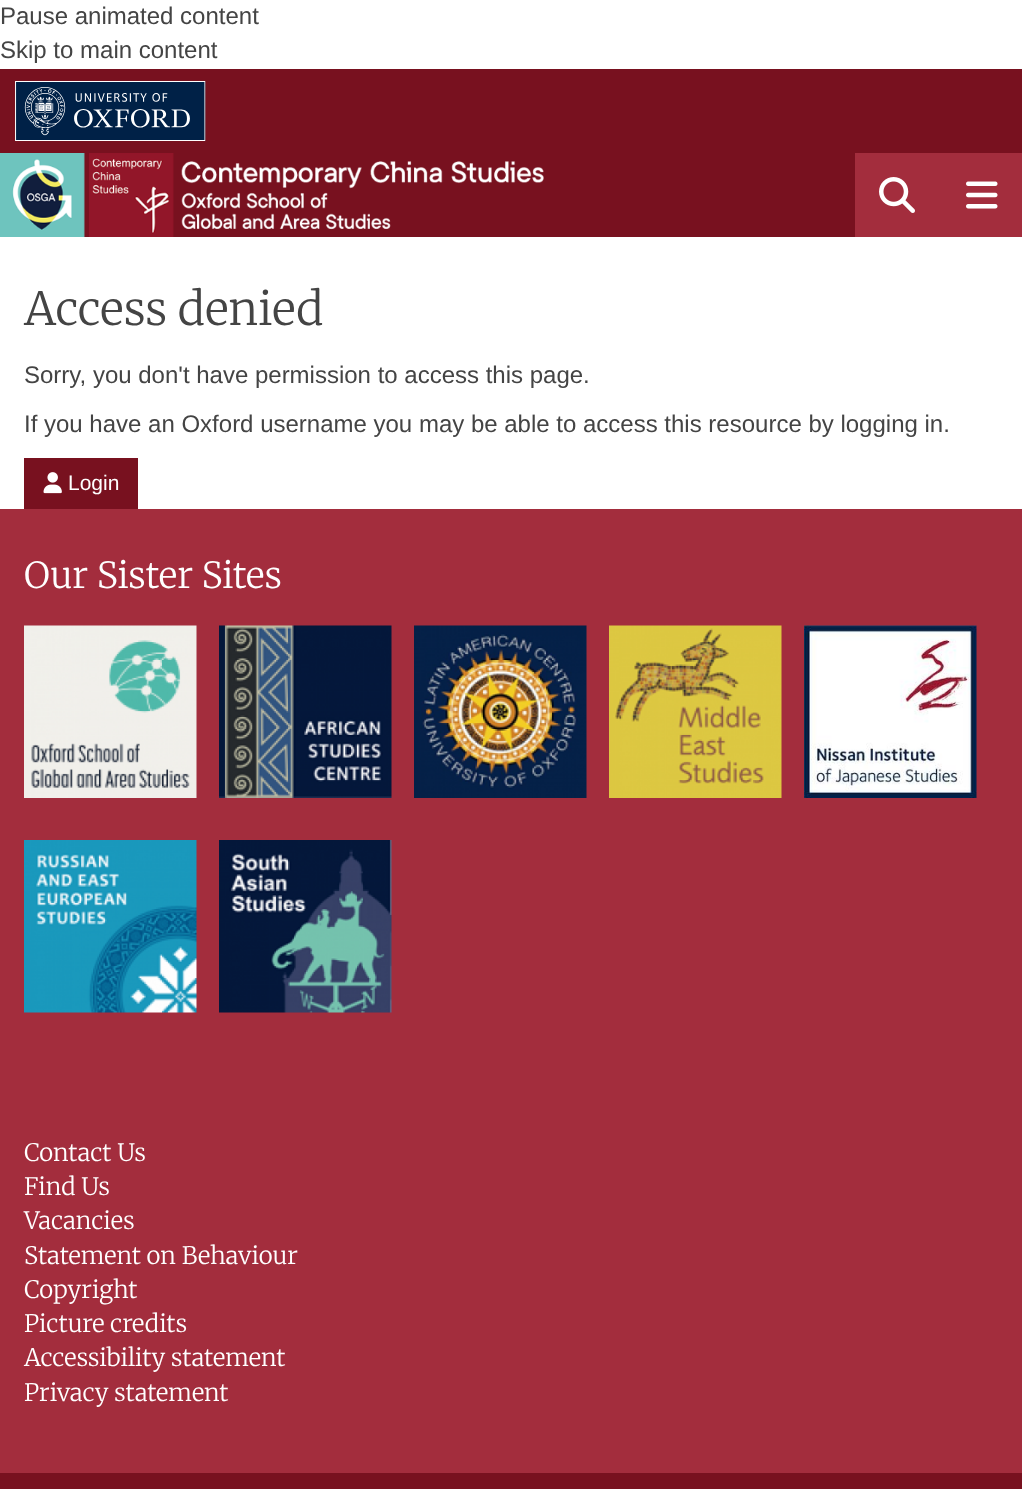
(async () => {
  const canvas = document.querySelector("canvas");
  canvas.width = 1022;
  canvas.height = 1489;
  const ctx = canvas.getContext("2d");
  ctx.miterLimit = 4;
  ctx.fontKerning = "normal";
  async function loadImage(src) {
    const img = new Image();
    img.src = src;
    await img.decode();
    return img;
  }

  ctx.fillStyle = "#ffffff";
  ctx.fillRect(0, 0, 1022, 1489);
  ctx.fillStyle = "#78111f";
  ctx.fillRect(0, 69, 1022, 84);
  ctx.drawImage(await loadImage("img/1.png"), 15, 81, 191, 60);
  ctx.fillRect(83, 153, 772, 84);
  ctx.drawImage(await loadImage("img/2.png"), 0, 153, 544, 84);
  ctx.fillStyle = "#a32d3d";
  ctx.fillRect(855, 153, 167, 84);
  ctx.drawImage(await loadImage("img/3.png"), 966, 181, 32, 28);
  ctx.drawImage(await loadImage("img/4.png"), 879, 177, 36, 36);
  ctx.fillStyle = "#78111f";
  ctx.fillRect(24, 458, 114, 51);
  ctx.drawImage(await loadImage("img/5.png"), 43, 472, 19, 22);
  ctx.fillStyle = "#a32d3d";
  ctx.fillRect(0, 509, 1022, 964);
  ctx.drawImage(await loadImage("img/6.png"), 24, 625, 173, 173);
  ctx.drawImage(await loadImage("img/7.png"), 219, 625, 173, 173);
  ctx.drawImage(await loadImage("img/8.png"), 414, 625, 173, 173);
  ctx.drawImage(await loadImage("img/9.png"), 609, 625, 173, 173);
  ctx.drawImage(await loadImage("img/10.png"), 804, 625, 173, 173);
  ctx.drawImage(await loadImage("img/11.png"), 24, 840, 173, 173);
  ctx.drawImage(await loadImage("img/12.png"), 219, 840, 173, 173);
  ctx.fillStyle = "#78111f";
  ctx.fillRect(0, 1473, 1022, 16);
  ctx.font = "24px Liberation Sans";
  ctx.fillStyle = "#444444";
  ctx.fillText("Pause animated content", 0, 24);
  ctx.fillText("Skip to main content", 0, 58);
  ctx.font = "300 45.5px Merriweather";
  ctx.fillText("Access denied", 24, 325);
  ctx.font = "24px Liberation Sans";
  ctx.fillText("Sorry, you don't have permission to access this page.", 24, 383);
  ctx.fillText("If you have an Oxford username you may be able to access this resource by logging in.", 24, 432);
  ctx.font = "21px Liberation Sans";
  ctx.fillStyle = "#ffffff";
  ctx.fillText("Login", 68, 490);
  ctx.font = "300 36px Merriweather";
  ctx.fillText("Our Sister Sites", 24, 588);
  ctx.font = "300 24px Merriweather";
  for (const [text, x, y] of [
    ["Contact Us", 24, 1161],
    ["Find Us", 24, 1195],
    ["Vacancies", 24, 1229],
    ["Statement on Behaviour", 24, 1264],
    ["Copyright", 24, 1298],
    ["Picture credits", 24, 1332],
    ["Accessibility statement", 24, 1366],
    ["Privacy statement", 24, 1401],
  ]) {
    ctx.fillText(text, x, y);
  }
})();
